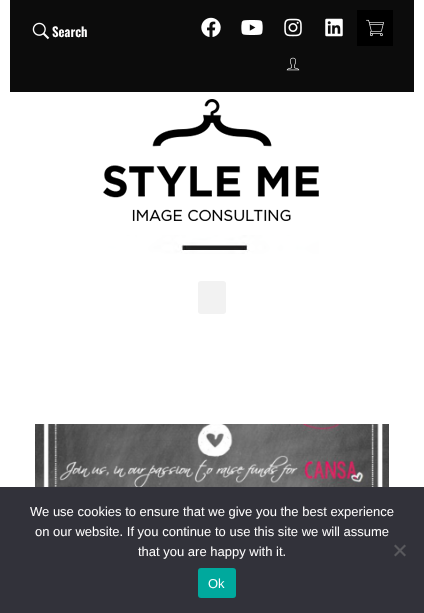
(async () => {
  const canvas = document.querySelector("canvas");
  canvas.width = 424;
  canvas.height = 613;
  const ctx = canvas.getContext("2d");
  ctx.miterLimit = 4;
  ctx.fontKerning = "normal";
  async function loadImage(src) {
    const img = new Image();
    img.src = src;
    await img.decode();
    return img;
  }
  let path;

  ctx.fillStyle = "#ffffff";
  ctx.fillRect(0, 0, 424, 613);
  ctx.fillStyle = "#0c0c0c";
  ctx.fillRect(10, 0, 404, 92);
  ctx.drawImage(await loadImage("img/1.png"), 201, 17, 20, 20);
  ctx.drawImage(await loadImage("img/2.png"), 241, 20, 22, 15);
  ctx.drawImage(await loadImage("img/3.png"), 284, 18, 18, 19);
  ctx.drawImage(await loadImage("img/4.png"), 325, 18, 18, 19);
  ctx.fillStyle = "#000000";
  ctx.fillRect(357, 10, 36, 36);
  ctx.drawImage(await loadImage("img/5.png"), 366, 19, 18, 18);
  ctx.drawImage(await loadImage("img/6.png"), 286, 57, 14, 14);
  ctx.drawImage(await loadImage("img/7.png"), 32, 22, 18, 18);
  ctx.drawImage(await loadImage("img/8.png"), 103, 99, 216, 155);
  ctx.fillStyle = "#f2f2f2";
  ctx.beginPath();
  ctx.roundRect(198, 281, 28, 33, 3);
  ctx.fill();
  ctx.drawImage(await loadImage("img/9.png"), 35, 424, 354, 63);
  ctx.fillStyle = "#32323a";
  ctx.fillRect(0, 487, 424, 126);
  ctx.fillStyle = "#59595d";
  path = new Path2D("M404.5 544.5L406 546L395.5 556.5L394 555Z");
  ctx.fill(path);
  path = new Path2D("M394 546L395.5 544.5L406 555L404.5 556.5Z");
  ctx.fill(path);
  ctx.fillStyle = "#00a99d";
  ctx.beginPath();
  ctx.roundRect(198, 568, 38, 30, 3);
  ctx.fill();
  ctx.font = "600 13px Oswald";
  ctx.fillStyle = "#fffefe";
  ctx.fillText("Search", 52, 37);
  ctx.font = "13px Liberation Sans";
  for (const [text, x, y] of [
    ["We use cookies to ensure that we give you the best experience", 30, 516],
    ["on our website. If you continue to use this site we will assume", 35, 536],
    ["that you are happy with it.", 138, 556],
    ["Ok", 208, 588],
  ]) {
    ctx.fillText(text, x, y);
  }
})();
